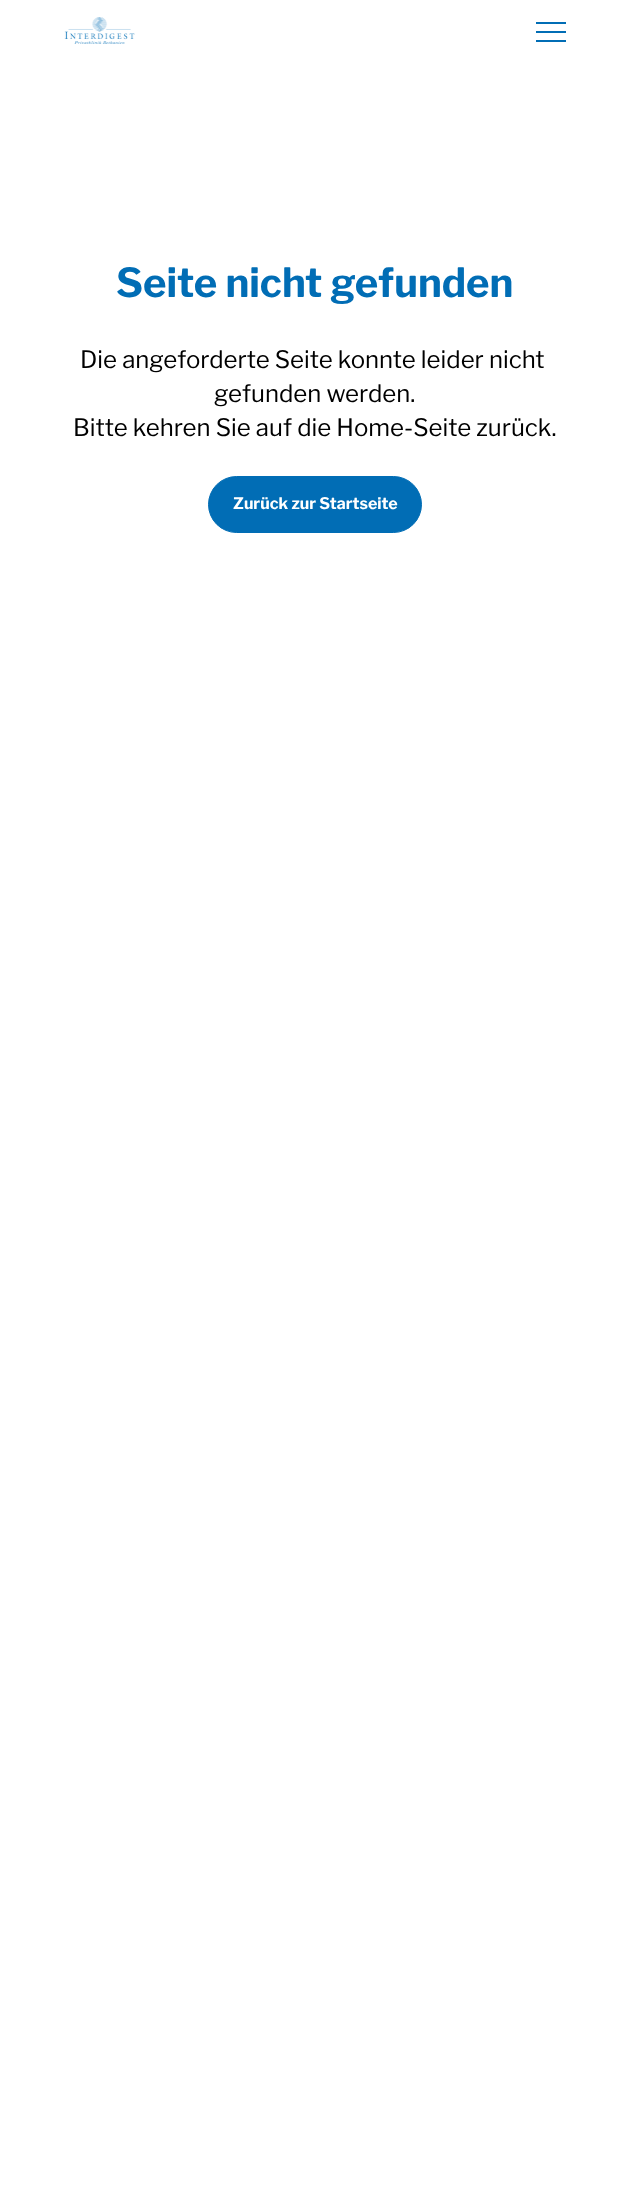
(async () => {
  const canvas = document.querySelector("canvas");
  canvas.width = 630;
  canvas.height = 2206;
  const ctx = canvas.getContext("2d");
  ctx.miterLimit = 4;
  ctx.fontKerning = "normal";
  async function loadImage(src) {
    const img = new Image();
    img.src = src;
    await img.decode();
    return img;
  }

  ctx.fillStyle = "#ffffff";
  ctx.fillRect(0, 0, 630, 2206);
  ctx.drawImage(await loadImage("img/1.png"), 64, 17, 71, 27);
  for (const [x, y, w, h, color] of [
    [536, 22, 30, 2, "#016db5"],
    [536, 31, 30, 2, "#016db5"],
    [536, 40, 30, 2, "#016db5"],
  ]) {
    ctx.fillStyle = color;
    ctx.fillRect(x, y, w, h);
  }
  ctx.beginPath();
  ctx.roundRect(208.5, 476.5, 213, 56, 28);
  ctx.fill();
  ctx.strokeStyle = "#016db5";
  ctx.stroke();
  ctx.font = "100 40px Libre Franklin";
  ctx.fillText("Seite nicht gefunden", 116, 297);
  ctx.font = "100 24px 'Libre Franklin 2'";
  ctx.fillStyle = "#000000";
  for (const [text, x, y] of [
    ["Die angeforderte Seite konnte leider nicht", 80, 368],
    ["gefunden werden.", 214, 402],
    ["Bitte kehren Sie auf die Home-Seite zurück.", 73, 436],
  ]) {
    ctx.fillText(text, x, y);
  }
  ctx.font = "100 16px Libre Franklin";
  ctx.fillStyle = "#ffffff";
  ctx.fillText("Zurück zur Startseite", 233, 509);
})();
